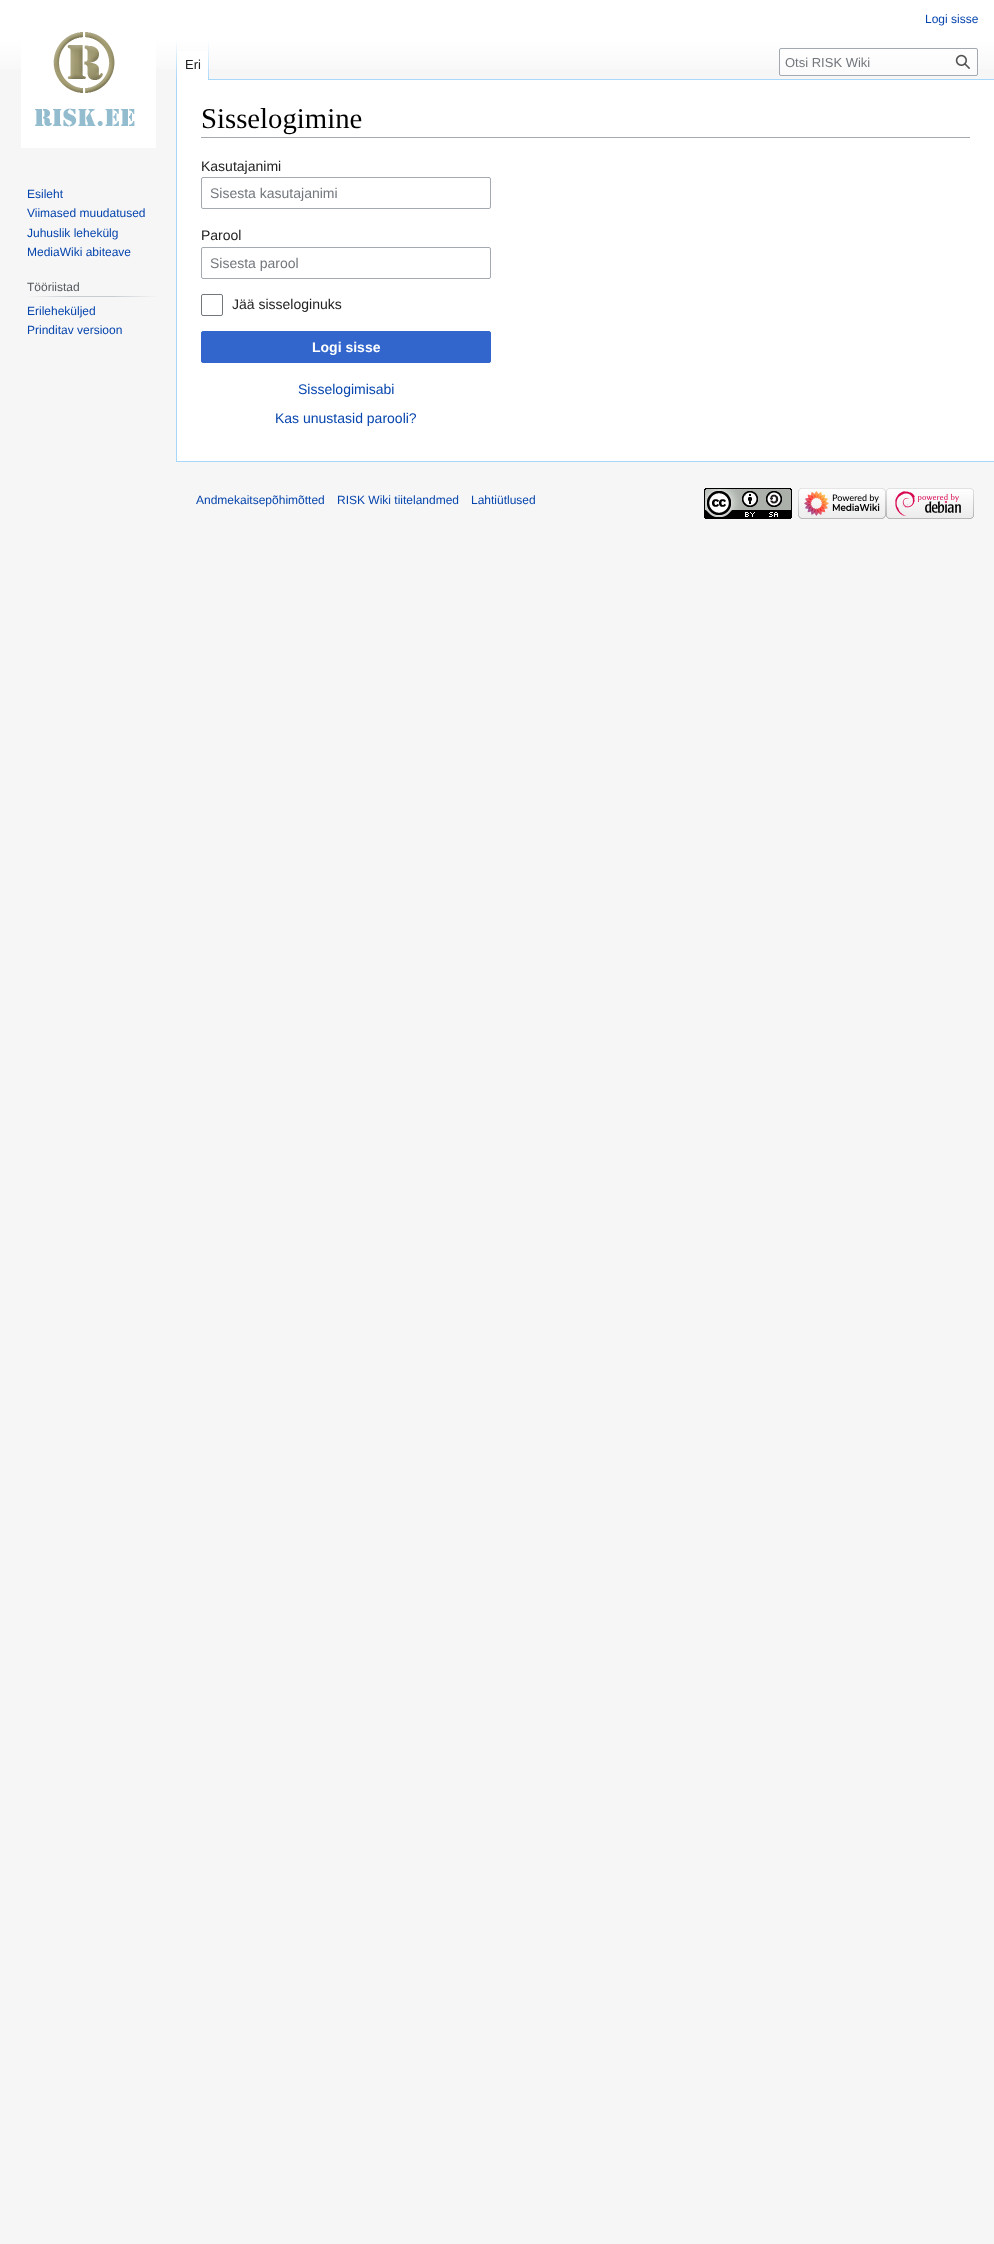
(async () => {
  const canvas = document.querySelector("canvas");
  canvas.width = 994;
  canvas.height = 2244;
  const ctx = canvas.getContext("2d");
  ctx.miterLimit = 4;
  ctx.fontKerning = "normal";
  async function loadImage(src) {
    const img = new Image();
    img.src = src;
    await img.decode();
    return img;
  }
  let gradient;

  ctx.fillStyle = "#f6f6f6";
  ctx.fillRect(0, 0, 994, 2244);
  gradient = ctx.createLinearGradient(497, 0, 497, 80);
  gradient.addColorStop(0.5, "#ffffff");
  gradient.addColorStop(1, "#f6f6f6");
  ctx.fillStyle = gradient;
  ctx.fillRect(0, 0, 994, 69);
  ctx.fillStyle = "#a7d7f9";
  ctx.fillRect(176, 461, 818, 1);
  ctx.fillRect(176, 79, 1, 383);
  gradient = ctx.createLinearGradient(177, 40, 177, 80);
  gradient.addColorStop(0, "rgba(167, 215, 249, 0)");
  gradient.addColorStop(1, "#a7d7f9");
  ctx.fillStyle = gradient;
  ctx.fillRect(176, 40, 1, 40);
  ctx.fillStyle = "#ffffff";
  ctx.fillRect(177, 51, 31, 29);
  gradient = ctx.createLinearGradient(209, 40, 209, 80);
  gradient.addColorStop(0, "#ffffff");
  gradient.addColorStop(1, "#a7d7f9");
  ctx.fillStyle = gradient;
  ctx.fillRect(208, 40, 1, 40);
  ctx.fillStyle = "rgba(255, 255, 255, 0.5)";
  ctx.beginPath();
  ctx.roundRect(779.5, 48.5, 198, 27, 1.5);
  ctx.fill();
  ctx.strokeStyle = "#a2a9b1";
  ctx.stroke();
  ctx.drawImage(await loadImage("img/1.png"), 955, 54, 15, 15);
  ctx.drawImage(await loadImage("img/2.png"), 21, 32, 135, 116);
  gradient = ctx.createLinearGradient(27, 297, 158, 297);
  gradient.addColorStop(0, "#f6f6f6");
  gradient.addColorStop(0.33, "#c8ccd1");
  gradient.addColorStop(0.66, "#c8ccd1");
  gradient.addColorStop(1, "#f6f6f6");
  ctx.fillStyle = gradient;
  ctx.fillRect(27, 296, 131, 1);
  for (const [x, y, w, h, color] of [
    [177, 80, 817, 381, "#ffffff"],
    [209, 79, 785, 1, "#a7d7f9"],
    [201, 137, 769, 1, "#a2a9b1"],
  ]) {
    ctx.fillStyle = color;
    ctx.fillRect(x, y, w, h);
  }
  ctx.beginPath();
  ctx.roundRect(201.5, 177.5, 289, 31, 1.5);
  ctx.stroke();
  ctx.beginPath();
  ctx.roundRect(201.5, 247.5, 289, 31, 1.5);
  ctx.stroke();
  ctx.beginPath();
  ctx.roundRect(201.5, 294.5, 21, 21, 1.5);
  ctx.strokeStyle = "#72777d";
  ctx.stroke();
  ctx.fillStyle = "#3366cc";
  ctx.beginPath();
  ctx.roundRect(201.5, 331.5, 289, 31, 1.5);
  ctx.fill();
  ctx.strokeStyle = "#3366cc";
  ctx.stroke();
  ctx.drawImage(await loadImage("img/3.png"), 704, 488, 88, 31);
  ctx.drawImage(await loadImage("img/4.png"), 798, 488, 88, 31);
  ctx.drawImage(await loadImage("img/5.png"), 886, 488, 88, 31);
  ctx.font = "12px Liberation Sans";
  ctx.fillStyle = "#0645ad";
  ctx.fillText("Logi sisse", 925, 23);
  ctx.font = "13px Liberation Sans";
  ctx.fillStyle = "#202122";
  ctx.fillText("Eri", 185, 69);
  ctx.fillStyle = "#72777d";
  ctx.fillText("Otsi RISK Wiki", 785, 67);
  ctx.font = "12px Liberation Sans";
  ctx.fillStyle = "#0645ad";
  for (const [text, x, y] of [
    ["Esileht", 27, 198],
    ["Viimased muudatused", 27, 217],
    ["Juhuslik lehekülg", 27, 237],
    ["MediaWiki abiteave", 27, 256],
  ]) {
    ctx.fillText(text, x, y);
  }
  ctx.fillStyle = "#54595d";
  ctx.fillText("Tööriistad", 27, 291);
  ctx.fillStyle = "#0645ad";
  ctx.fillText("Erileheküljed", 27, 315);
  ctx.fillText("Prinditav versioon", 27, 334);
  ctx.font = "28.75px Liberation Serif";
  ctx.fillStyle = "#000000";
  ctx.fillText("Sisselogimine", 201, 128);
  ctx.font = "14px Liberation Sans";
  ctx.fillStyle = "#202122";
  ctx.fillText("Kasutajanimi", 201, 171);
  ctx.fillStyle = "#72777d";
  ctx.fillText("Sisesta kasutajanimi", 210, 198);
  ctx.fillStyle = "#202122";
  ctx.fillText("Parool", 201, 240);
  ctx.fillStyle = "#72777d";
  ctx.fillText("Sisesta parool", 210, 268);
  ctx.fillStyle = "#202122";
  ctx.fillText("Jää sisseloginuks", 232, 309);
  ctx.font = "bold 14px Liberation Sans";
  ctx.fillStyle = "#ffffff";
  ctx.fillText("Logi sisse", 312, 352);
  ctx.font = "14px Liberation Sans";
  ctx.fillStyle = "#0645ad";
  ctx.fillText("Sisselogimisabi", 298, 394);
  ctx.fillText("Kas unustasid parooli?", 275, 423);
  ctx.font = "12px Liberation Sans";
  for (const [text, x, y] of [
    ["Andmekaitsepõhimõtted", 196, 504],
    ["RISK Wiki tiitelandmed", 337, 504],
    ["Lahtiütlused", 471, 504],
  ]) {
    ctx.fillText(text, x, y);
  }
})();
